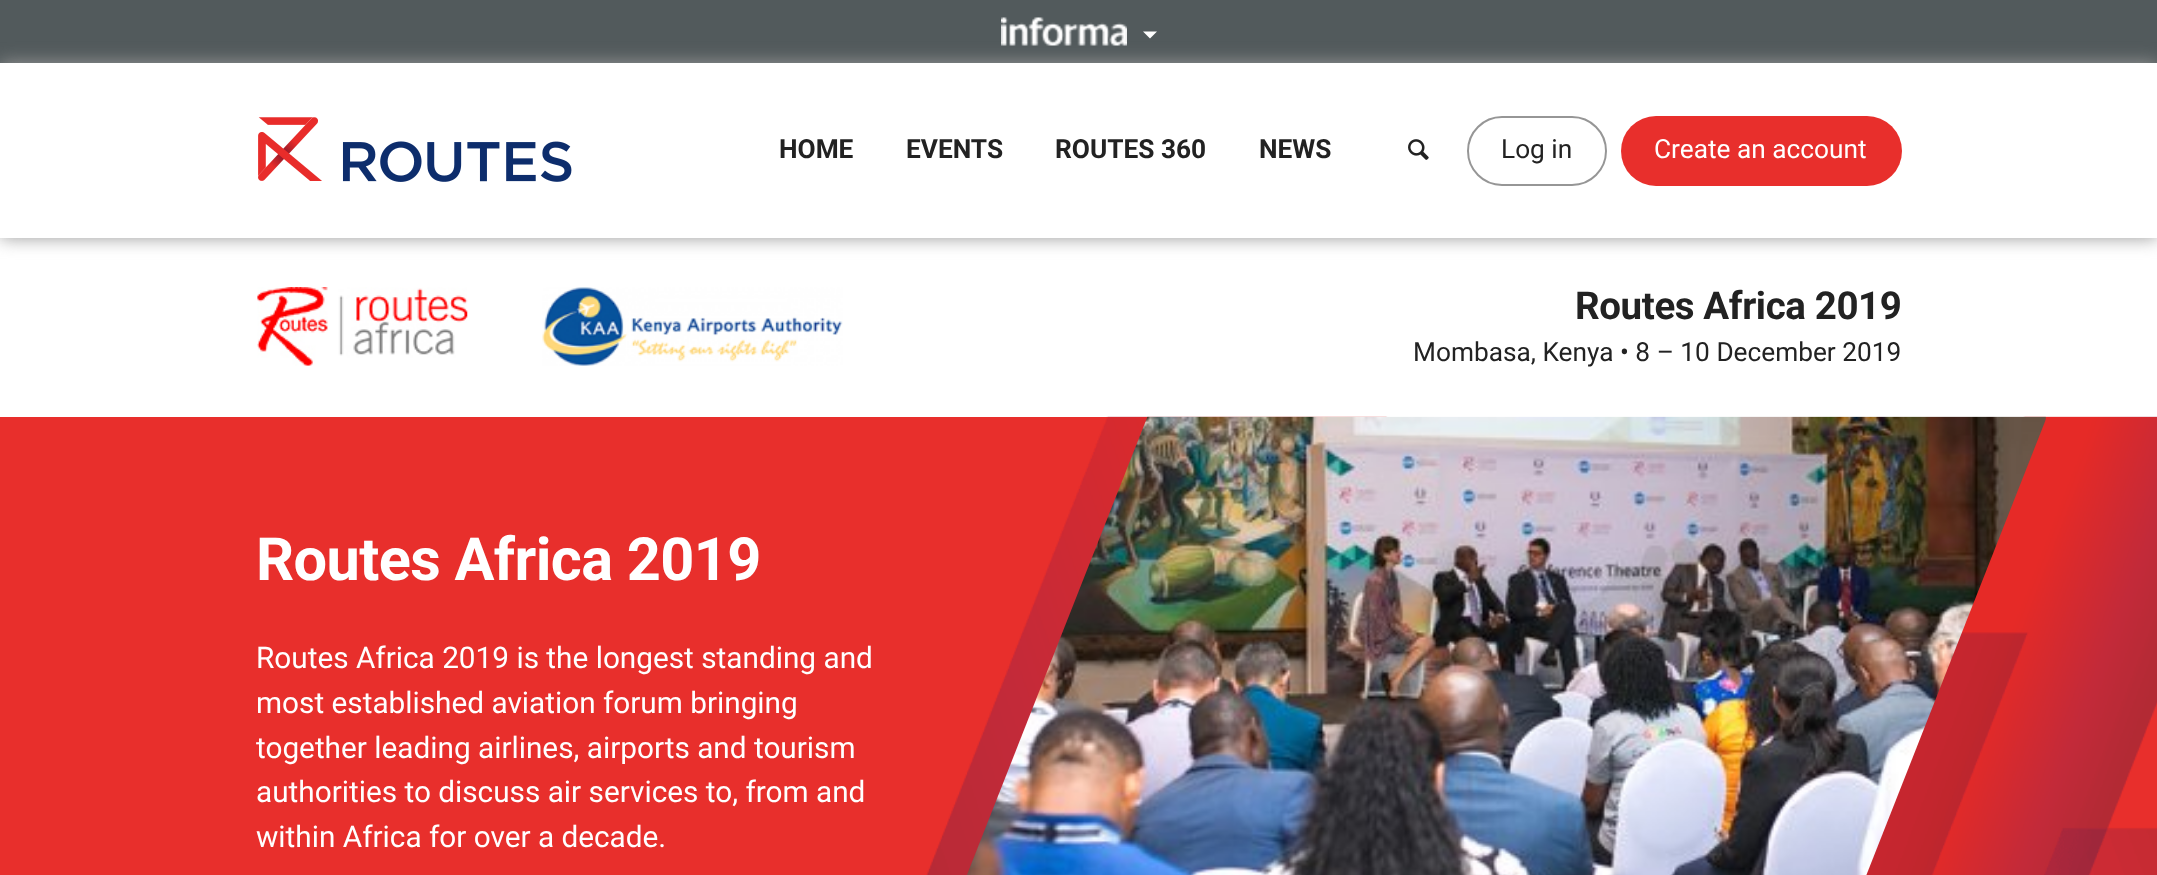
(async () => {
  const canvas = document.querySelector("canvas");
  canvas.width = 2157;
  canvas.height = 875;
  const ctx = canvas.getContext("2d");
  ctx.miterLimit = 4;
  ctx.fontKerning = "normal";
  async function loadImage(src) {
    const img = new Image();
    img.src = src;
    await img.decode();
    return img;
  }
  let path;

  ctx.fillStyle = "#ffffff";
  ctx.fillRect(0, 0, 2157, 875);
  ctx.fillStyle = "#525a5c";
  ctx.fillRect(0, 0, 2157, 63);
  ctx.drawImage(await loadImage("img/1.png"), 1001, 17, 126, 29);
  ctx.fillStyle = "#ffffff";
  path = new Path2D("M1143 31.5H1157L1150 38.5Z");
  ctx.fill(path);
  ctx.save();
  path = new Path2D("M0 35H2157V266H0ZM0 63H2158V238H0Z");
  ctx.clip(path, "evenodd");
  ctx.fillStyle = "#999999";
  ctx.filter = "blur(9px)";
  ctx.beginPath();
  ctx.rect(0, 63, 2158, 175);
  ctx.fill();
  ctx.filter = "none";
  ctx.restore();
  ctx.drawImage(await loadImage("img/2.png"), 258, 117, 314, 65);
  ctx.drawImage(await loadImage("img/3.png"), 1408, 139, 21, 21);
  ctx.beginPath();
  ctx.roundRect(1468, 117, 138, 68, 34);
  ctx.strokeStyle = "#969696";
  ctx.lineWidth = 2;
  ctx.stroke();
  ctx.fillStyle = "#e82f2c";
  ctx.beginPath();
  ctx.roundRect(1621, 116, 281, 70, 35);
  ctx.fill();
  ctx.drawImage(await loadImage("img/4.png"), 257, 287, 211, 79);
  ctx.drawImage(await loadImage("img/5.png"), 542, 287, 301, 79);
  ctx.fillRect(0, 417, 2157, 458);
  ctx.drawImage(await loadImage("img/6.png"), 926, 416, 1231, 459);
  ctx.drawImage(await loadImage("img/7.png"), 967, 416, 1079, 459);
  ctx.font = "bold 26.25px Roboto";
  ctx.fillStyle = "#222222";
  for (const [text, x, y] of [
    ["HOME", 779, 158],
    ["EVENTS", 906, 158],
    ["ROUTES 360", 1055, 158],
    ["NEWS", 1259, 158],
  ]) {
    ctx.fillText(text, x, y);
  }
  ctx.font = "26.25px Roboto";
  ctx.fillText("Log in", 1501, 158);
  ctx.fillStyle = "#ffffff";
  ctx.fillText("Create an account", 1654, 158);
  ctx.letterSpacing = "-0.4px";
  ctx.font = "bold 38.5px Roboto";
  ctx.fillStyle = "#222222";
  ctx.fillText("Routes Africa 2019", 1575, 319);
  ctx.letterSpacing = "0px";
  ctx.font = "26.25px Roboto";
  ctx.fillText("Mombasa, Kenya • 8 – 10 December 2019", 1413, 361);
  ctx.letterSpacing = "-0.6px";
  ctx.font = "bold 59.5px Roboto";
  ctx.fillStyle = "#ffffff";
  ctx.fillText("Routes Africa 2019", 256, 580);
  ctx.letterSpacing = "0px";
  ctx.font = "29.75px Roboto";
  for (const [text, x, y] of [
    ["Routes Africa 2019 is the longest standing and", 256, 668],
    ["most established aviation forum bringing", 256, 713],
    ["together leading airlines, airports and tourism", 256, 758],
    ["authorities to discuss air services to, from and", 256, 802],
    ["within Africa for over a decade.", 256, 847],
  ]) {
    ctx.fillText(text, x, y);
  }
})();
